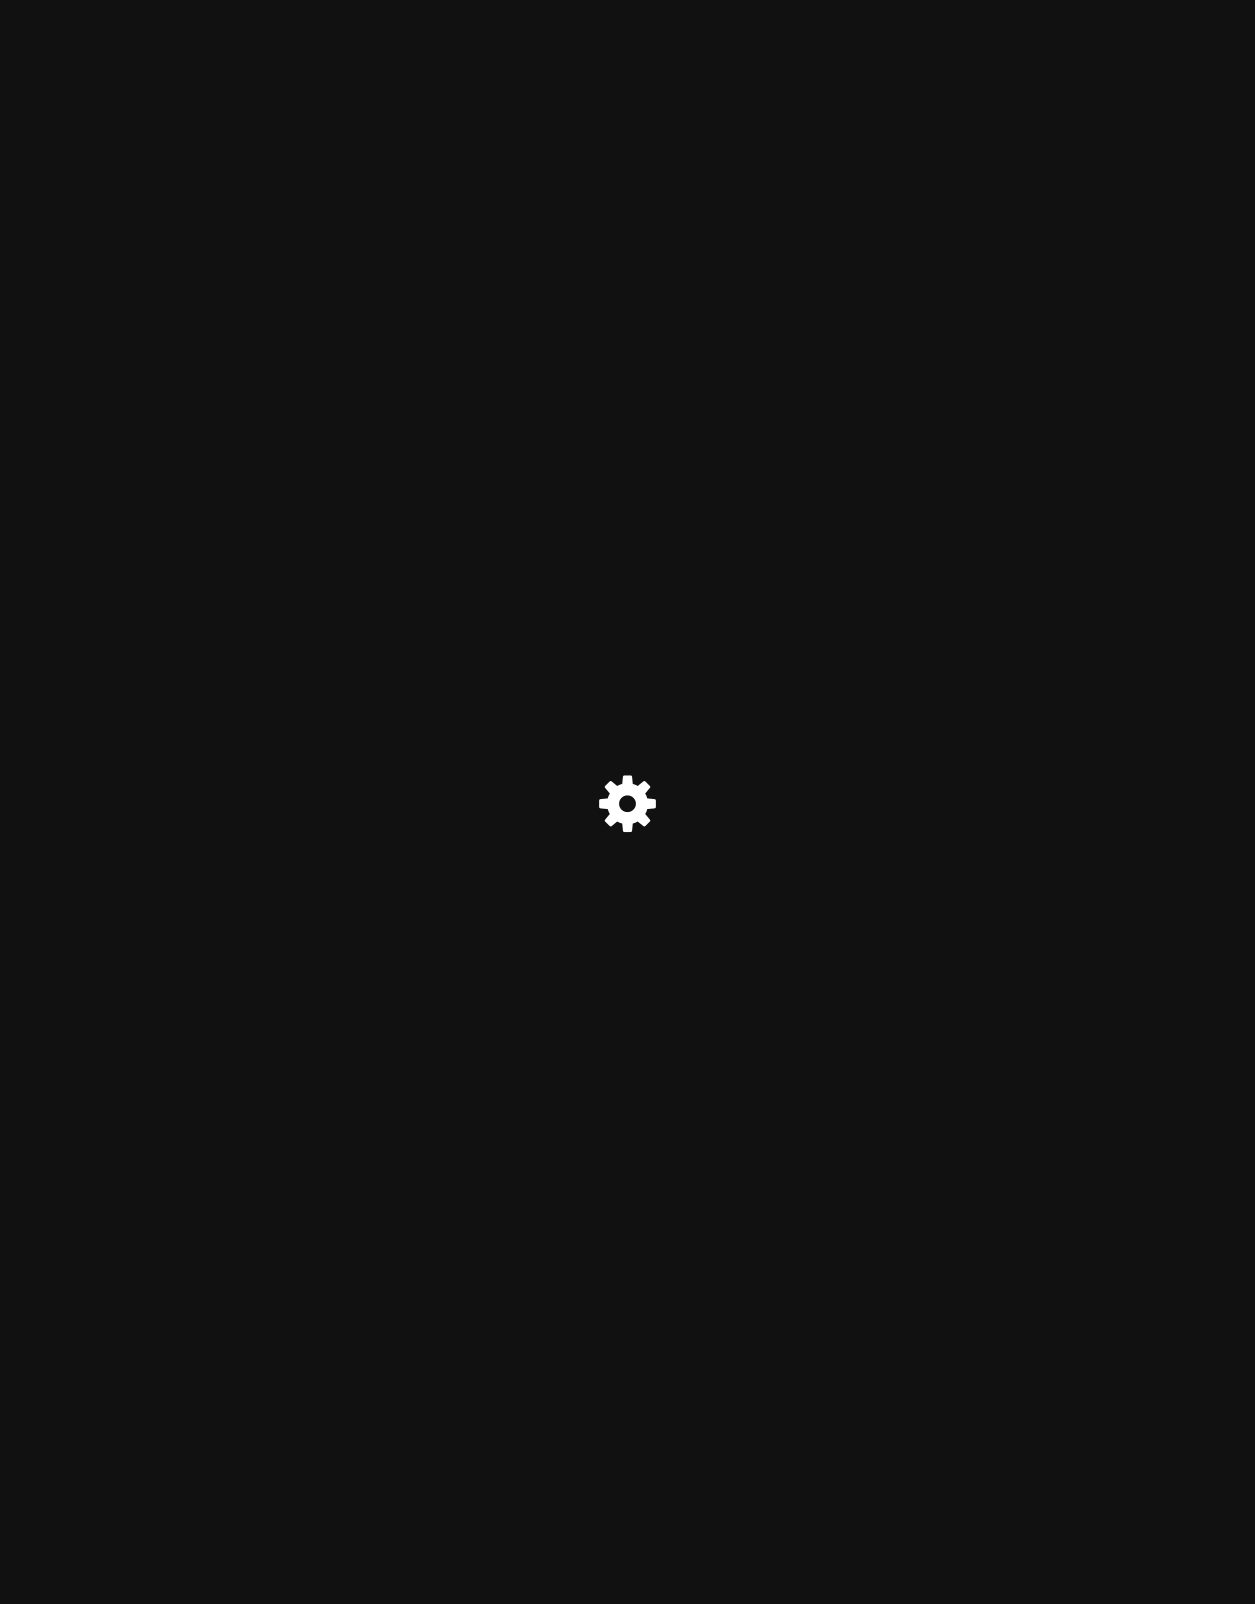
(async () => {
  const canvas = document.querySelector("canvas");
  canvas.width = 1255;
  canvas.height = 1604;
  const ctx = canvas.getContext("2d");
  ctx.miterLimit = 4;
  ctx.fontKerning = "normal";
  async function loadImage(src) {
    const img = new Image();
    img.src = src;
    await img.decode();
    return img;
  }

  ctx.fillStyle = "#111111";
  ctx.fillRect(0, 0, 1255, 1604);
  ctx.drawImage(await loadImage("img/1.png"), 599, 775, 57, 58);
})();
